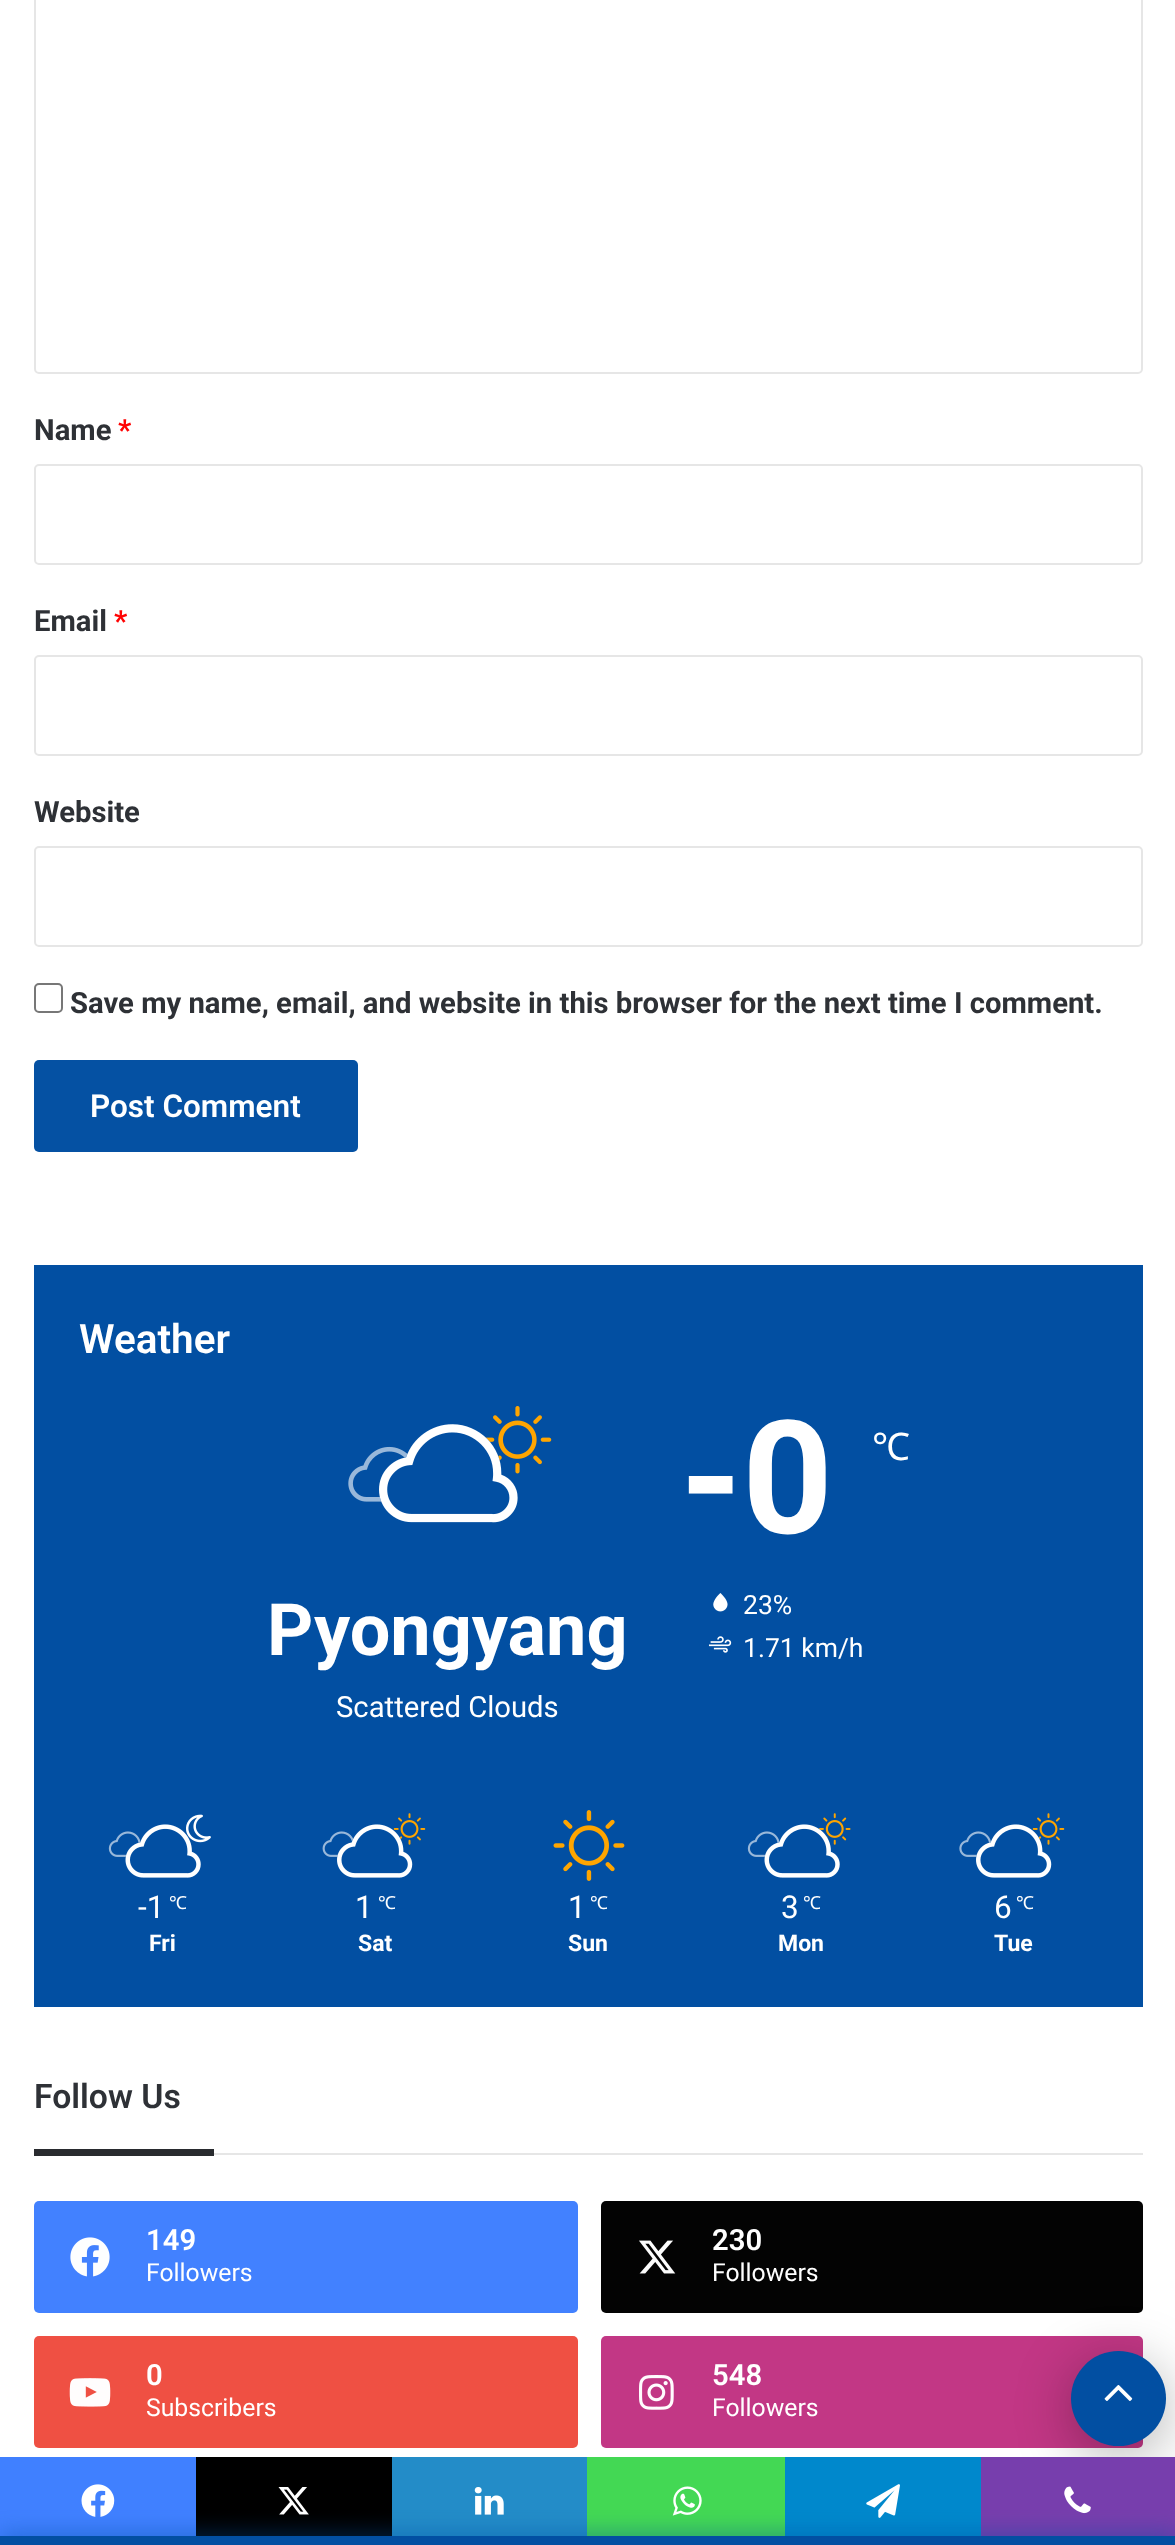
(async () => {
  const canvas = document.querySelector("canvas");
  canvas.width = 1175;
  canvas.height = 2545;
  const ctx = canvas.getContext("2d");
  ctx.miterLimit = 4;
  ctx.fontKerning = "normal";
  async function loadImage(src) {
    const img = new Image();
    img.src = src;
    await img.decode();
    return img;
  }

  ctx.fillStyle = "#ffffff";
  ctx.fillRect(0, 0, 1175, 2545);
  ctx.beginPath();
  ctx.roundRect(35, -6, 1107, 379, 4);
  ctx.strokeStyle = "#e6e6e6";
  ctx.lineWidth = 2;
  ctx.stroke();
  ctx.beginPath();
  ctx.roundRect(35, 465, 1107, 99, 4);
  ctx.stroke();
  ctx.beginPath();
  ctx.roundRect(35, 656, 1107, 99, 4);
  ctx.stroke();
  ctx.beginPath();
  ctx.roundRect(35, 847, 1107, 99, 4);
  ctx.stroke();
  ctx.beginPath();
  ctx.roundRect(35, 984, 27, 28, 4);
  ctx.strokeStyle = "#777777";
  ctx.stroke();
  ctx.fillStyle = "#0551a3";
  ctx.beginPath();
  ctx.roundRect(34, 1060, 324, 92, 5);
  ctx.fill();
  ctx.fillStyle = "#024fa2";
  ctx.fillRect(34, 1265, 1109, 742);
  ctx.drawImage(await loadImage("img/2.png"), 485, 1406, 67, 68);
  ctx.drawImage(await loadImage("img/3.png"), 348, 1446, 60, 56);
  ctx.drawImage(await loadImage("img/4.png"), 379, 1437, 121, 65);
  ctx.drawImage(await loadImage("img/1.png"), 379, 1424, 139, 99);
  ctx.drawImage(await loadImage("img/5.png"), 713, 1593, 15, 19);
  ctx.drawImage(await loadImage("img/6.png"), 708, 1636, 24, 17);
  ctx.drawImage(await loadImage("img/7.png"), 186, 1814, 25, 29);
  ctx.drawImage(await loadImage("img/8.png"), 108, 1831, 33, 26);
  ctx.drawImage(await loadImage("img/10.png"), 125, 1841, 20, 16);
  ctx.drawImage(await loadImage("img/9.png"), 125, 1824, 76, 54);
  ctx.drawImage(await loadImage("img/11.png"), 393, 1813, 33, 32);
  ctx.drawImage(await loadImage("img/13.png"), 322, 1831, 32, 26);
  ctx.drawImage(await loadImage("img/14.png"), 337, 1837, 64, 20);
  ctx.drawImage(await loadImage("img/12.png"), 337, 1824, 76, 54);
  ctx.drawImage(await loadImage("img/15.png"), 553, 1810, 72, 71);
  ctx.drawImage(await loadImage("img/16.png"), 819, 1813, 32, 32);
  ctx.drawImage(await loadImage("img/8.png"), 747, 1831, 33, 26);
  ctx.drawImage(await loadImage("img/18.png"), 764, 1829, 64, 28);
  ctx.drawImage(await loadImage("img/17.png"), 764, 1824, 76, 54);
  ctx.drawImage(await loadImage("img/11.png"), 1032, 1813, 33, 32);
  ctx.drawImage(await loadImage("img/19.png"), 959, 1831, 32, 26);
  ctx.drawImage(await loadImage("img/21.png"), 976, 1837, 64, 20);
  ctx.drawImage(await loadImage("img/20.png"), 976, 1824, 76, 54);
  ctx.fillStyle = "#e6e6e6";
  ctx.fillRect(214, 2153, 929, 2);
  ctx.fillStyle = "#292b2f";
  ctx.fillRect(34, 2149, 180, 7);
  ctx.fillStyle = "#4281ff";
  ctx.beginPath();
  ctx.roundRect(34, 2201, 544, 112, 5);
  ctx.fill();
  ctx.drawImage(await loadImage("img/22.png"), 70, 2237, 40, 40);
  ctx.fillStyle = "#030303";
  ctx.beginPath();
  ctx.roundRect(601, 2201, 542, 112, 5);
  ctx.fill();
  ctx.drawImage(await loadImage("img/23.png"), 639, 2240, 37, 34);
  ctx.fillStyle = "#ef5043";
  ctx.beginPath();
  ctx.roundRect(34, 2336, 544, 112, 5);
  ctx.fill();
  ctx.drawImage(await loadImage("img/24.png"), 69, 2378, 42, 29);
  ctx.fillStyle = "#c23785";
  ctx.beginPath();
  ctx.roundRect(601, 2336, 542, 112, 5);
  ctx.fill();
  ctx.drawImage(await loadImage("img/25.png"), 639, 2375, 35, 35);
  ctx.fillStyle = "rgba(0, 0, 0, 0.3)";
  ctx.filter = "blur(28px)";
  ctx.beginPath();
  ctx.roundRect(1071, 2363, 95, 94, 47);
  ctx.fill();
  ctx.filter = "none";
  ctx.fillStyle = "#024fa2";
  ctx.beginPath();
  ctx.arc(1118.5, 2398.5, 47.5, 0, Math.PI * 2);
  ctx.fill();
  ctx.drawImage(await loadImage("img/26.png"), 1104, 2385, 29, 16);
  ctx.fillStyle = "#4080ff";
  ctx.fillRect(0, 2457, 196, 79);
  ctx.drawImage(await loadImage("img/27.png"), 81, 2484, 34, 33);
  ctx.fillStyle = "#000000";
  ctx.fillRect(196, 2457, 196, 79);
  ctx.drawImage(await loadImage("img/28.png"), 278, 2487, 31, 28);
  ctx.fillStyle = "#238cc8";
  ctx.fillRect(392, 2457, 195, 79);
  ctx.drawImage(await loadImage("img/29.png"), 474, 2487, 30, 28);
  ctx.fillStyle = "#43d854";
  ctx.fillRect(587, 2457, 198, 79);
  ctx.drawImage(await loadImage("img/30.png"), 672, 2486, 30, 30);
  ctx.fillStyle = "#0088cc";
  ctx.fillRect(785, 2457, 196, 79);
  ctx.drawImage(await loadImage("img/31.png"), 866, 2484, 34, 34);
  ctx.fillStyle = "#773ead";
  ctx.fillRect(981, 2457, 194, 79);
  ctx.drawImage(await loadImage("img/32.png"), 1064, 2486, 27, 28);
  ctx.fillStyle = "rgba(2, 79, 162, 0.7)";
  ctx.filter = "blur(11px)";
  ctx.beginPath();
  ctx.rect(0, 2536, 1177, 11);
  ctx.fill();
  ctx.filter = "none";
  ctx.fillStyle = "#024fa2";
  ctx.fillRect(0, 2536, 1175, 9);
  ctx.font = "bold 29.25px Roboto";
  ctx.fillStyle = "#2e3136";
  ctx.fillText("Name", 34, 440);
  ctx.fillStyle = "#ff0303";
  ctx.fillText("*", 118, 440);
  ctx.fillStyle = "#2e3136";
  ctx.fillText("Email", 34, 631);
  ctx.fillStyle = "#ff0303";
  ctx.fillText("*", 114, 631);
  ctx.fillStyle = "#2e3136";
  ctx.fillText("Website", 34, 822);
  ctx.fillText("Save my name, email, and website in this browser for the next time I comment.", 70, 1013);
  ctx.font = "600 31.5px Roboto";
  ctx.fillStyle = "#ffffff";
  ctx.fillText("Post Comment", 90, 1117);
  ctx.font = "600 40.5px Roboto";
  ctx.fillText("Weather", 79, 1353);
  ctx.font = "bold 72px Roboto";
  ctx.fillText("Pyongyang", 267, 1655);
  ctx.font = "29.25px Roboto";
  ctx.fillText("Scattered Clouds", 336, 1717);
  ctx.font = "bold 158px Roboto";
  ctx.fillText("-0", 680, 1533);
  ctx.font = "38px Noto Sans";
  ctx.fillText("℃", 872, 1460);
  ctx.font = "26.5px Roboto";
  ctx.fillText("23%", 743, 1614);
  ctx.fillText("1.71 km/h", 743, 1657);
  ctx.font = "31.5px Roboto";
  ctx.fillText("-1", 138, 1918);
  ctx.font = "18px Noto Sans";
  ctx.fillText("℃", 169, 1909);
  ctx.font = "bold 23px Roboto";
  ctx.fillText("Fri", 149, 1951);
  ctx.font = "31.5px Roboto";
  ctx.fillText("1", 355, 1918);
  ctx.font = "18px Noto Sans";
  ctx.fillText("℃", 378, 1909);
  ctx.font = "bold 23px Roboto";
  ctx.fillText("Sat", 358, 1951);
  ctx.font = "31.5px Roboto";
  ctx.fillText("1", 568, 1918);
  ctx.font = "18px Noto Sans";
  ctx.fillText("℃", 590, 1909);
  ctx.font = "bold 23px Roboto";
  ctx.fillText("Sun", 568, 1951);
  ctx.font = "31.5px Roboto";
  ctx.fillText("3", 781, 1918);
  ctx.font = "18px Noto Sans";
  ctx.fillText("℃", 803, 1909);
  ctx.font = "bold 23px Roboto";
  ctx.fillText("Mon", 778, 1951);
  ctx.font = "31.5px Roboto";
  ctx.fillText("6", 994, 1918);
  ctx.font = "18px Noto Sans";
  ctx.fillText("℃", 1016, 1909);
  ctx.font = "bold 23px Roboto";
  ctx.fillText("Tue", 994, 1951);
  ctx.font = "600 33.75px Roboto";
  ctx.fillStyle = "#2e3136";
  ctx.fillText("Follow Us", 34, 2108);
  ctx.font = "600 29.25px Roboto";
  ctx.fillStyle = "#ffffff";
  ctx.fillText("149", 146, 2250);
  ctx.font = "24.75px Roboto";
  ctx.fillText("Followers", 146, 2281);
  ctx.font = "600 29.25px Roboto";
  ctx.fillText("230", 712, 2250);
  ctx.font = "24.75px Roboto";
  ctx.fillText("Followers", 712, 2281);
  ctx.font = "600 29.25px Roboto";
  ctx.fillText("0", 146, 2385);
  ctx.font = "24.75px Roboto";
  ctx.fillText("Subscribers", 146, 2416);
  ctx.font = "600 29.25px Roboto";
  ctx.fillText("548", 712, 2385);
  ctx.font = "24.75px Roboto";
  ctx.fillText("Followers", 712, 2416);
})();
